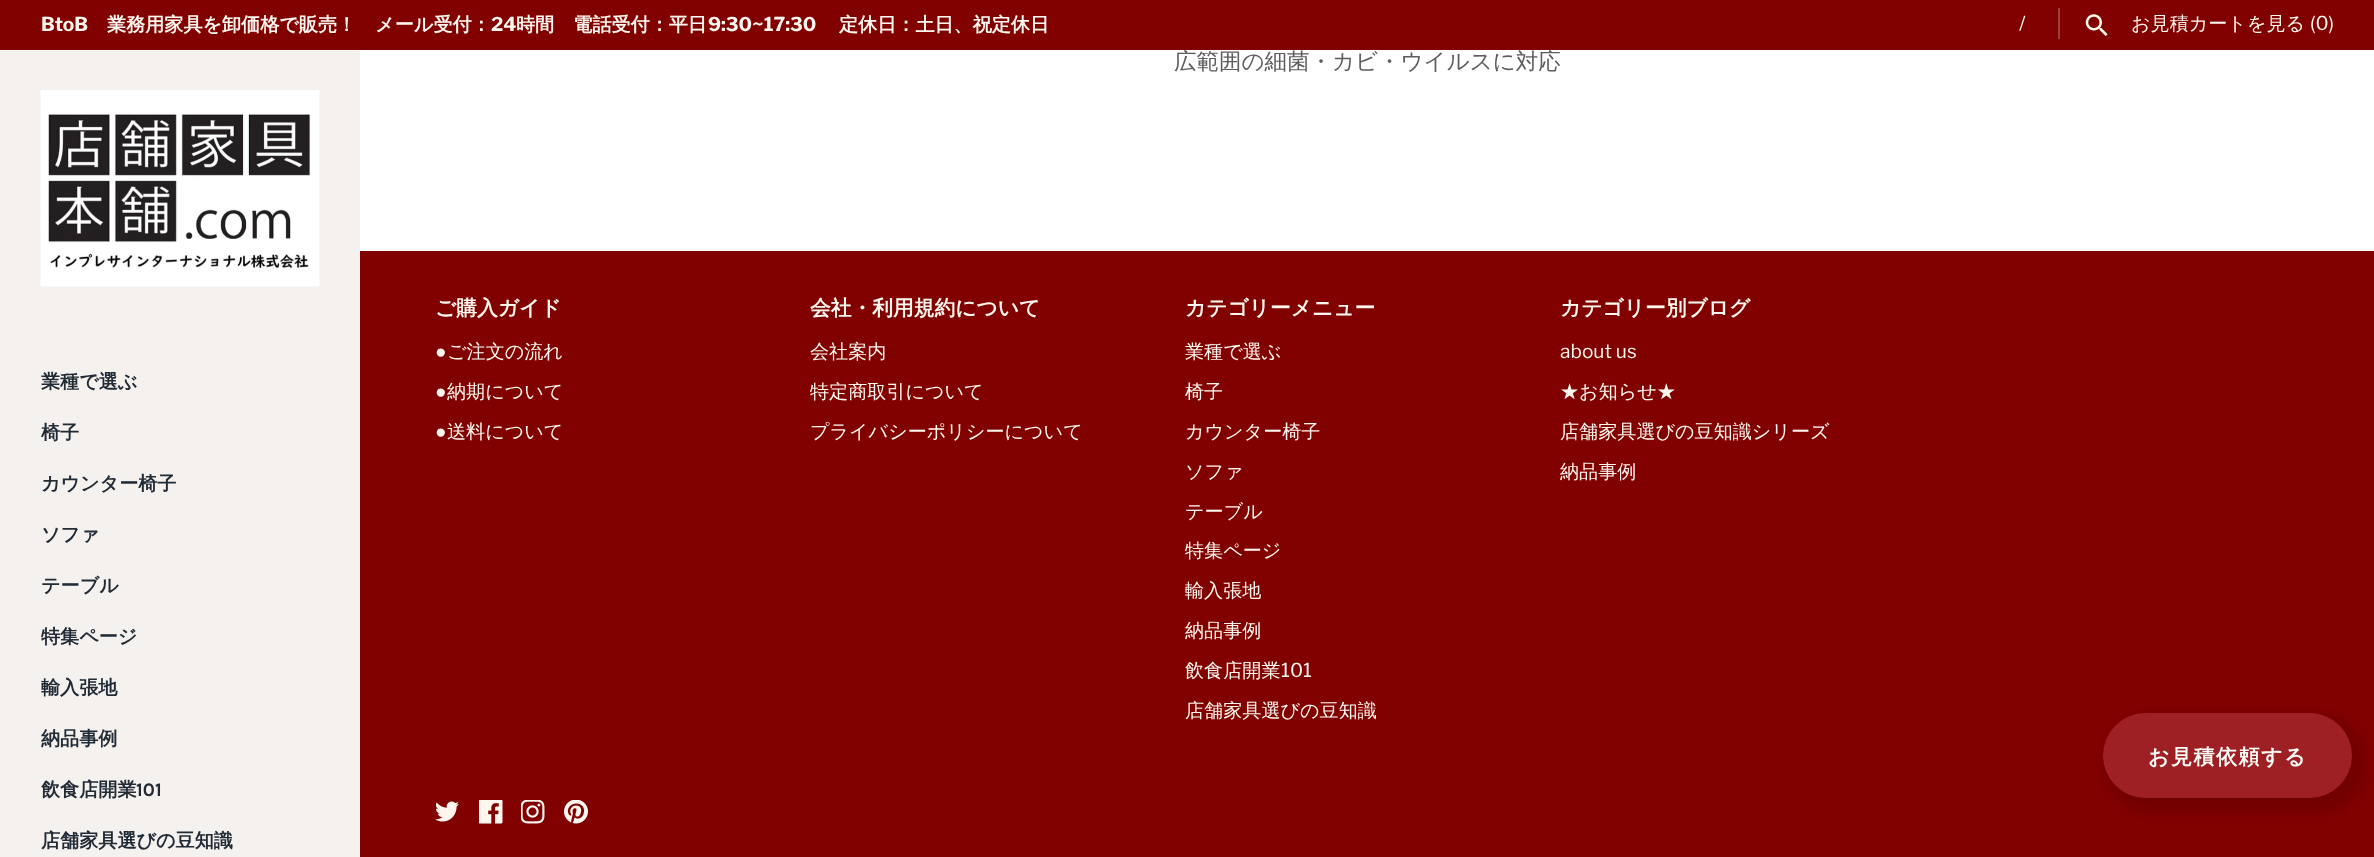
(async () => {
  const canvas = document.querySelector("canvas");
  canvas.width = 2374;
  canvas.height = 857;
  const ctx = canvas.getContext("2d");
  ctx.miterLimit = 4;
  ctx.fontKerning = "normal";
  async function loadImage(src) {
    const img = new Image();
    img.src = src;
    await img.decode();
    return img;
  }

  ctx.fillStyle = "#ffffff";
  ctx.fillRect(0, 0, 2374, 857);
  ctx.fillStyle = "#f5f1ee";
  ctx.fillRect(0, 50, 360, 807);
  ctx.drawImage(await loadImage("img/2.png"), 40, 90, 280, 197);
  ctx.fillStyle = "#810000";
  ctx.fillRect(360, 251, 2014, 606);
  ctx.drawImage(await loadImage("img/3.png"), 435, 801, 24, 21);
  ctx.drawImage(await loadImage("img/4.png"), 479, 800, 24, 24);
  ctx.drawImage(await loadImage("img/5.png"), 521, 800, 24, 24);
  ctx.drawImage(await loadImage("img/6.png"), 564, 800, 24, 24);
  ctx.fillStyle = "rgba(0, 0, 0, 0.1)";
  ctx.filter = "blur(4px)";
  ctx.beginPath();
  ctx.roundRect(2103, 713, 264, 100, 50);
  ctx.fill();
  ctx.filter = "none";
  ctx.fillStyle = "#9e2024";
  ctx.beginPath();
  ctx.roundRect(2103, 713, 249, 85, 42.5);
  ctx.fill();
  ctx.font = "bold 19.1px WenQuanYi Zen Hei";
  ctx.fillStyle = "#212b36";
  for (const [text, x, y] of [
    ["業種で選ぶ", 41, 388],
    ["椅子", 41, 439],
    ["カウンター椅子", 41, 490],
    ["ソファ", 41, 541],
    ["テーブル", 41, 592],
    ["特集ページ", 41, 643],
    ["輸入張地", 41, 694],
    ["納品事例", 41, 745],
    ["飲食店開業", 41, 796],
  ]) {
    ctx.fillText(text, x, y);
  }
  ctx.font = "bold 19.1px Karla";
  ctx.fillText("101", 136, 796);
  ctx.font = "bold 19.1px WenQuanYi Zen Hei";
  ctx.fillText("店舗家具選びの豆知識", 41, 847);
  ctx.font = "500 22.5px WenQuanYi Zen Hei";
  ctx.fillStyle = "#5d5d60";
  ctx.fillText("広範囲の細菌・カビ・ウイルスに対応", 1174, 69);
  ctx.fillStyle = "#810000";
  ctx.fillRect(0, 0, 2374, 50);
  ctx.drawImage(await loadImage("img/1.png"), 2085, 14, 23, 22);
  ctx.fillStyle = "#a13f3b";
  ctx.fillRect(2058, 8, 2, 31);
  ctx.font = "19.1px Libre Franklin";
  ctx.fillStyle = "#fff7ef";
  ctx.fillText("/", 2019, 30);
  ctx.fillText("(0)", 2310, 30);
  ctx.font = "500 19.1px WenQuanYi Zen Hei";
  ctx.fillText("お見積カートを見る", 2131, 30);
  ctx.font = "bold 19.1px WenQuanYi Zen Hei";
  ctx.fillText("定休日：土日、祝定休日", 839, 31);
  ctx.font = "bold 19.1px Libre Franklin";
  ctx.fillText("9:30~17:30", 708, 31);
  ctx.font = "bold 19.1px WenQuanYi Zen Hei";
  ctx.fillText("時間　電話受付：平日", 516, 31);
  ctx.font = "bold 19.1px Libre Franklin";
  ctx.fillText("24", 491, 31);
  ctx.font = "bold 19.1px WenQuanYi Zen Hei";
  ctx.fillText("業務用家具を卸価格で販売！　メール受付：", 107, 31);
  ctx.font = "bold 19.1px Libre Franklin";
  ctx.fillText("BtoB", 41, 31);
  ctx.font = "bold 20.75px WenQuanYi Zen Hei";
  ctx.fillText("ご購入ガイド", 435, 315);
  ctx.font = "19.1px Liberation Sans";
  ctx.fillText("●", 435, 358);
  ctx.font = "500 19.1px WenQuanYi Zen Hei";
  ctx.fillText("ご注文の流れ", 447, 358);
  ctx.font = "19.1px Liberation Sans";
  ctx.fillText("●", 435, 398);
  ctx.font = "500 19.1px WenQuanYi Zen Hei";
  ctx.fillText("納期について", 447, 398);
  ctx.font = "19.1px Liberation Sans";
  ctx.fillText("●", 435, 438);
  ctx.font = "500 19.1px WenQuanYi Zen Hei";
  ctx.fillText("送料について", 447, 438);
  ctx.font = "bold 20.75px WenQuanYi Zen Hei";
  ctx.fillText("会社・利用規約について", 810, 315);
  ctx.font = "500 19.1px WenQuanYi Zen Hei";
  for (const [text, x, y] of [
    ["会社案内", 810, 358],
    ["特定商取引について", 810, 398],
    ["プライバシーポリシーについて", 810, 438],
  ]) {
    ctx.fillText(text, x, y);
  }
  ctx.font = "bold 20.75px WenQuanYi Zen Hei";
  ctx.fillText("カテゴリーメニュー", 1185, 315);
  ctx.font = "500 19.1px WenQuanYi Zen Hei";
  for (const [text, x, y] of [
    ["業種で選ぶ", 1185, 358],
    ["椅子", 1185, 398],
    ["カウンター椅子", 1185, 438],
    ["ソファ", 1185, 478],
    ["テーブル", 1185, 518],
    ["特集ページ", 1185, 557],
    ["輸入張地", 1185, 597],
    ["納品事例", 1185, 637],
    ["飲食店開業", 1185, 677],
  ]) {
    ctx.fillText(text, x, y);
  }
  ctx.font = "19.1px Libre Franklin";
  ctx.fillText("101", 1281, 677);
  ctx.font = "500 19.1px WenQuanYi Zen Hei";
  ctx.fillText("店舗家具選びの豆知識", 1185, 717);
  ctx.font = "bold 20.75px WenQuanYi Zen Hei";
  ctx.fillText("カテゴリー別ブログ", 1560, 315);
  ctx.font = "19.1px Libre Franklin";
  ctx.fillText("about us", 1560, 358);
  ctx.font = "500 19.1px WenQuanYi Zen Hei";
  for (const [text, x, y] of [
    ["★お知らせ★", 1560, 398],
    ["店舗家具選びの豆知識シリーズ", 1560, 438],
    ["納品事例", 1560, 478],
  ]) {
    ctx.fillText(text, x, y);
  }
  ctx.letterSpacing = "1.5px";
  ctx.font = "bold 21px WenQuanYi Zen Hei";
  ctx.fillStyle = "#fdfdf9";
  ctx.fillText("お見積依頼する", 2148, 764);
})();
